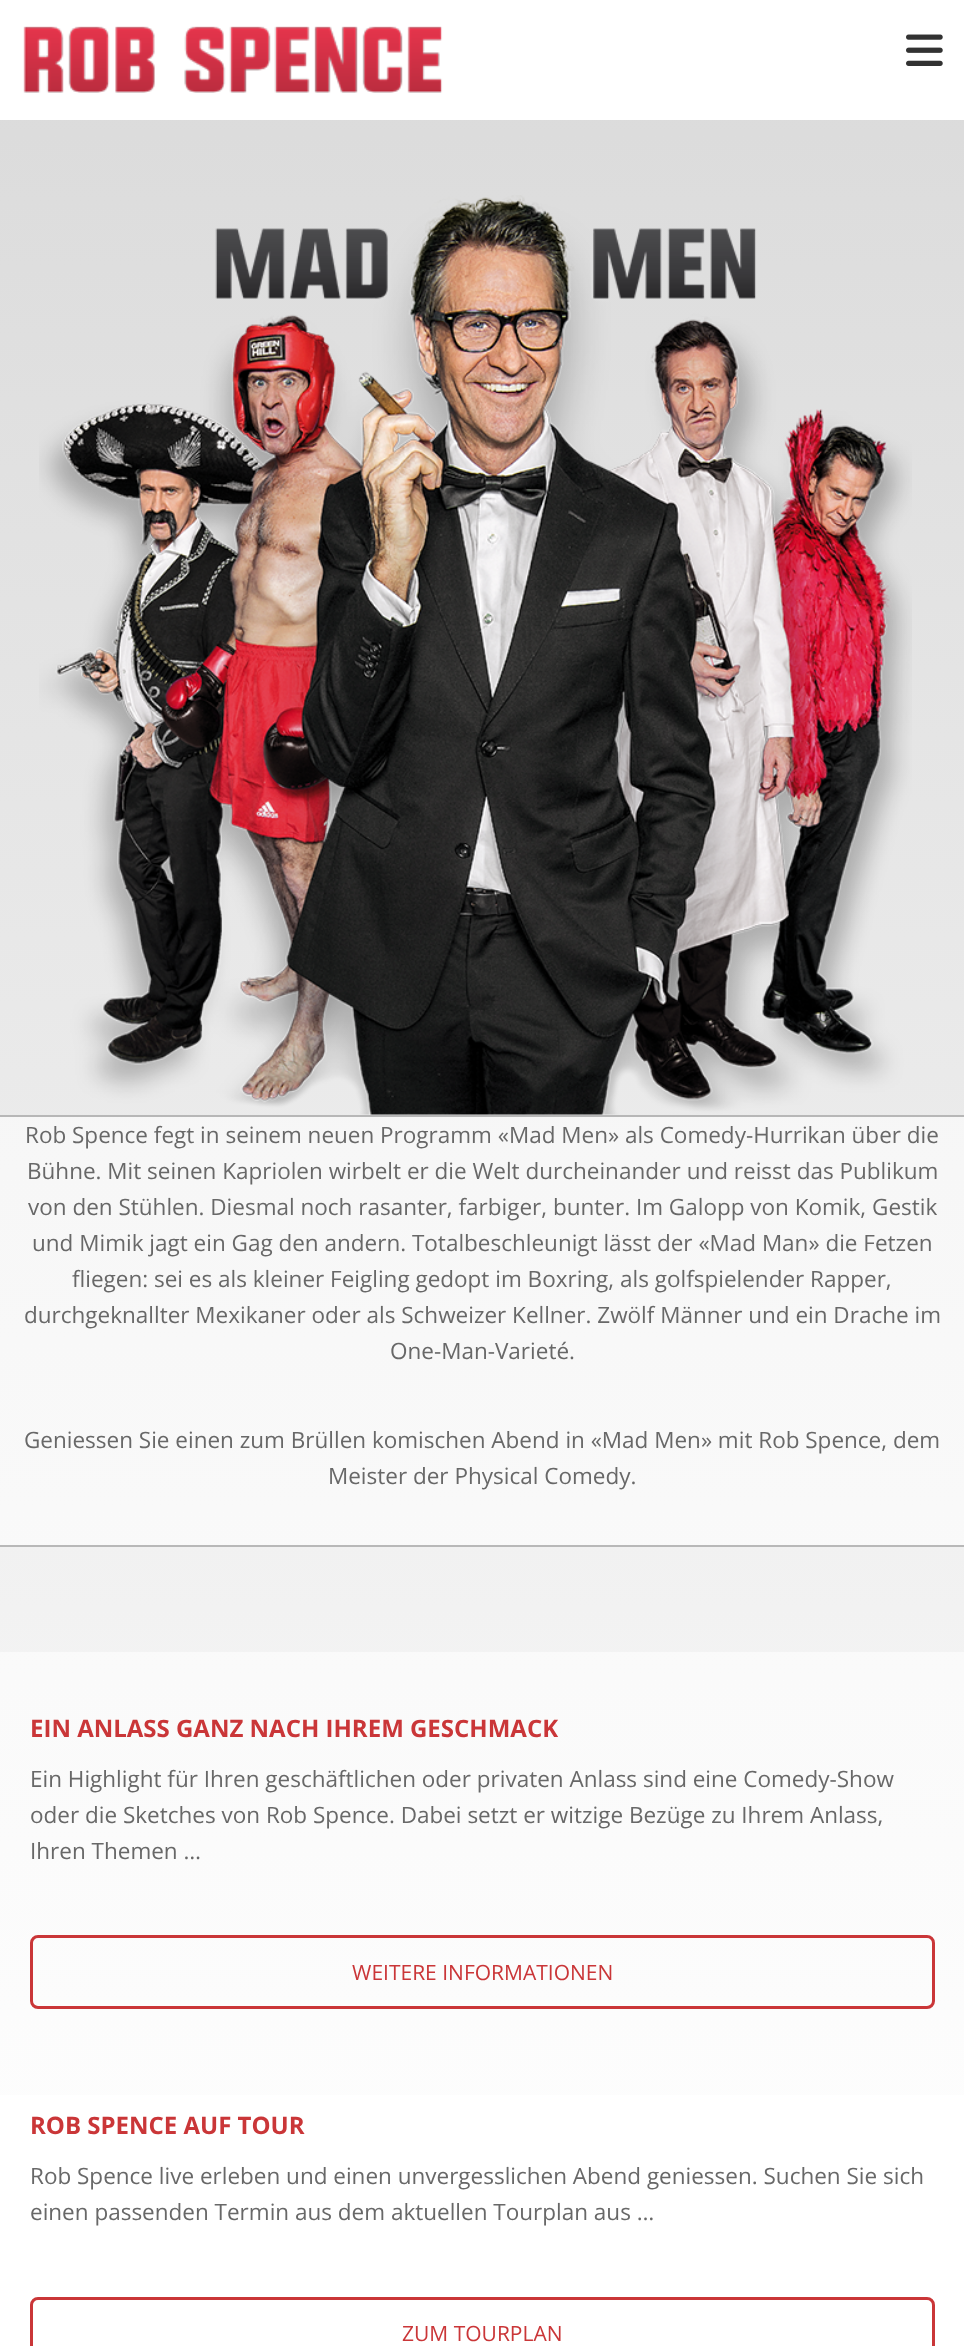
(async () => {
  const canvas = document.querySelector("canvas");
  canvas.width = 964;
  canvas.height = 2346;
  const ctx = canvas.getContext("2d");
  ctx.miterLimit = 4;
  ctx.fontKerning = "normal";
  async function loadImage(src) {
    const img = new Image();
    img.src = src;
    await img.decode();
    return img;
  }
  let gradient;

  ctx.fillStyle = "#ffffff";
  ctx.fillRect(0, 0, 964, 2346);
  ctx.drawImage(await loadImage("img/1.png"), 23, 26, 420, 67);
  ctx.drawImage(await loadImage("img/2.png"), 906, 34, 37, 32);
  gradient = ctx.createLinearGradient(482, 0, 482, 2346);
  gradient.addColorStop(0, "#dadada");
  gradient.addColorStop(1, "#fdfdfd");
  ctx.fillStyle = gradient;
  ctx.fillRect(0, 120, 964, 1532);
  gradient = ctx.createLinearGradient(482, 0, 482, 2346);
  gradient.addColorStop(0, "#f0f0f0");
  gradient.addColorStop(1, "#fefefe");
  ctx.fillStyle = gradient;
  ctx.fillRect(0, 2049, 964, 46);
  ctx.fillRect(0, 1652, 964, 397);
  ctx.fillRect(0, 1117, 964, 428);
  ctx.drawImage(await loadImage("img/3.png"), 39, 195, 873, 920);
  ctx.fillStyle = "#b7b7b7";
  ctx.fillRect(0, 1115, 964, 2);
  ctx.fillStyle = "#b8b8b8";
  ctx.fillRect(0, 1545, 964, 2);
  ctx.beginPath();
  ctx.roundRect(31.5, 1936.5, 902, 71, 6.5);
  ctx.strokeStyle = "#ca3638";
  ctx.lineWidth = 3;
  ctx.stroke();
  ctx.beginPath();
  ctx.roundRect(31.5, 2298.5, 902, 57, 6.5);
  ctx.stroke();
  ctx.font = "22.5px Open Sans";
  ctx.fillStyle = "#686868";
  for (const [text, x, y] of [
    ["Rob Spence fegt in seinem neuen Programm «Mad Men» als Comedy-Hurrikan über die", 25, 1143],
    ["Bühne. Mit seinen Kapriolen wirbelt er die Welt durcheinander und reisst das Publikum", 27, 1179],
    ["von den Stühlen. Diesmal noch rasanter, farbiger, bunter. Im Galopp von Komik, Gestik", 28, 1215],
    ["und Mimik jagt ein Gag den andern. Totalbeschleunigt lässt der «Mad Man» die Fetzen", 32, 1251],
    ["fliegen: sei es als kleiner Feigling gedopt im Boxring, als golfspielender Rapper,", 72, 1287],
    ["durchgeknallter Mexikaner oder als Schweizer Kellner. Zwölf Männer und ein Drache im", 24, 1323],
    ["One-Man-Varieté.", 390, 1359],
    ["Geniessen Sie einen zum Brüllen komischen Abend in «Mad Men» mit Rob Spence, dem", 24, 1448],
    ["Meister der Physical Comedy.", 328, 1484],
  ]) {
    ctx.fillText(text, x, y);
  }
  ctx.font = "bold 24px Open Sans";
  ctx.fillStyle = "#ca3638";
  ctx.fillText("EIN ANLASS GANZ NACH IHREM GESCHMACK", 30, 1737);
  ctx.font = "22.5px Open Sans";
  ctx.fillStyle = "#686868";
  for (const [text, x, y] of [
    ["Ein Highlight für Ihren geschäftlichen oder privaten Anlass sind eine Comedy-Show", 30, 1787],
    ["oder die Sketches von Rob Spence. Dabei setzt er witzige Bezüge zu Ihrem Anlass,", 30, 1823],
    ["Ihren Themen …", 30, 1859],
  ]) {
    ctx.fillText(text, x, y);
  }
  ctx.font = "21px Open Sans";
  ctx.fillStyle = "#ca3638";
  ctx.fillText("WEITERE INFORMATIONEN", 352, 1980);
  ctx.font = "bold 24px Open Sans";
  ctx.fillText("ROB SPENCE AUF TOUR", 30, 2134);
  ctx.font = "22.5px Open Sans";
  ctx.fillStyle = "#686868";
  ctx.fillText("Rob Spence live erleben und einen unvergesslichen Abend geniessen. Suchen Sie sich", 30, 2184);
  ctx.fillText("einen passenden Termin aus dem aktuellen Tourplan aus …", 30, 2220);
  ctx.font = "21px Open Sans";
  ctx.fillStyle = "#ca3638";
  ctx.fillText("ZUM TOURPLAN", 402, 2341);
})();
